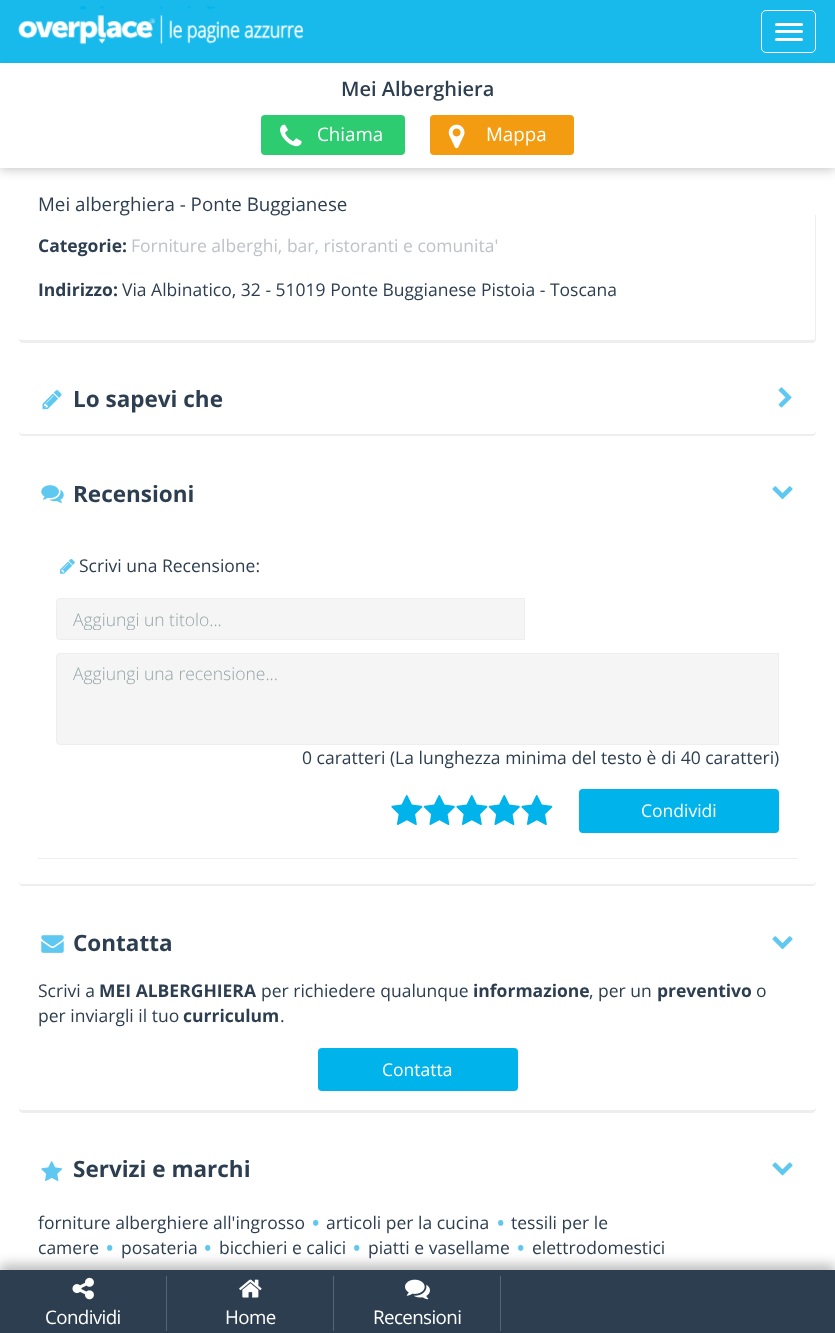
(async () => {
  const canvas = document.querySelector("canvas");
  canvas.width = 835;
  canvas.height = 1333;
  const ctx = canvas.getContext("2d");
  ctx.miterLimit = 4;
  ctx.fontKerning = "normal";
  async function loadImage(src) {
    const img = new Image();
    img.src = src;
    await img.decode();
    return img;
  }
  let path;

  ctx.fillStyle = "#f5f5f5";
  ctx.fillRect(0, 0, 835, 1333);
  ctx.fillStyle = "#ffffff";
  ctx.fillRect(0, 63, 835, 1207);
  ctx.save();
  path = new Path2D("M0 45H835V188H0ZM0 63H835V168H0Z");
  ctx.clip(path, "evenodd");
  ctx.fillStyle = "rgba(0, 0, 0, 0.25)";
  ctx.filter = "blur(6px)";
  ctx.beginPath();
  ctx.rect(0, 64, 835, 105);
  ctx.fill();
  ctx.filter = "none";
  ctx.restore();
  ctx.fillStyle = "rgba(0, 180, 235, 0.9)";
  ctx.fillRect(0, 0, 835, 63);
  ctx.drawImage(await loadImage("img/1.png"), 18, 6, 286, 39);
  ctx.beginPath();
  ctx.roundRect(761.5, 10.5, 54, 42, 4.5);
  ctx.strokeStyle = "#ffffff";
  ctx.stroke();
  ctx.fillStyle = "#ffffff";
  ctx.beginPath();
  ctx.roundRect(775, 23, 28, 3, 1.5);
  ctx.fill();
  ctx.beginPath();
  ctx.roundRect(775, 30, 28, 3, 1.5);
  ctx.fill();
  ctx.beginPath();
  ctx.roundRect(775, 38, 28, 3, 1.5);
  ctx.fill();
  ctx.fillStyle = "#2ecc71";
  ctx.beginPath();
  ctx.roundRect(261, 115, 144, 40, 4);
  ctx.fill();
  ctx.drawImage(await loadImage("img/2.png"), 280, 124, 22, 23);
  ctx.fillStyle = "#f39c12";
  ctx.beginPath();
  ctx.roundRect(430, 115, 144, 40, 4);
  ctx.fill();
  ctx.drawImage(await loadImage("img/3.png"), 448, 124, 17, 25);
  ctx.fillStyle = "#eeeeee";
  path = new Path2D("M19 338V339C19 341 21 343 23 343H812C814 343 816 341 816 339V338C815 339 814 340 812 340H22C21 340 20 339 19 338Z");
  ctx.fill(path);
  ctx.fillStyle = "#ffffff";
  ctx.beginPath();
  ctx.roundRect(19, 194, 797, 146, 4);
  ctx.fill();
  ctx.fillStyle = "#eeeeee";
  ctx.fillRect(815, 215, 1, 125);
  path = new Path2D("M19 431C19 434 20 436 23 436H812C815 436 816 434 816 431C815 433 814 434 812 434H22C21 434 20 433 19 431Z");
  ctx.fill(path);
  ctx.fillStyle = "#ffffff";
  ctx.beginPath();
  ctx.roundRect(19, 365, 797, 69, 4);
  ctx.fill();
  ctx.drawImage(await loadImage("img/4.png"), 42, 390, 20, 20);
  ctx.drawImage(await loadImage("img/5.png"), 778, 387, 14, 21);
  ctx.fillStyle = "#eeeeee";
  path = new Path2D("M19 881C19 884 20 886 23 886H812C815 886 816 884 816 881C815 883 814 884 812 884H22C21 884 20 883 19 881Z");
  ctx.fill(path);
  ctx.fillStyle = "#ffffff";
  ctx.beginPath();
  ctx.roundRect(19, 459, 797, 425, 4);
  ctx.fill();
  ctx.drawImage(await loadImage("img/6.png"), 41, 485, 23, 18);
  ctx.drawImage(await loadImage("img/7.png"), 772, 486, 21, 14);
  ctx.drawImage(await loadImage("img/8.png"), 60, 559, 15, 15);
  ctx.fillStyle = "#f5f5f5";
  ctx.beginPath();
  ctx.roundRect(56.5, 598.5, 468, 41, [3.5, 0, 0, 3.5]);
  ctx.fill();
  ctx.strokeStyle = "#eeeeee";
  ctx.stroke();
  ctx.beginPath();
  ctx.roundRect(56.5, 653.5, 722, 91, [3.5, 0, 0, 3.5]);
  ctx.fill();
  ctx.stroke();
  ctx.drawImage(await loadImage("img/9.png"), 391, 795, 32, 30);
  ctx.drawImage(await loadImage("img/10.png"), 424, 795, 31, 30);
  ctx.drawImage(await loadImage("img/9.png"), 456, 795, 32, 30);
  ctx.drawImage(await loadImage("img/11.png"), 489, 795, 31, 30);
  ctx.drawImage(await loadImage("img/9.png"), 521, 795, 32, 30);
  ctx.fillStyle = "#00b4eb";
  ctx.beginPath();
  ctx.roundRect(579, 789, 200, 44, 4);
  ctx.fill();
  ctx.fillStyle = "#eeeeee";
  ctx.fillRect(38, 858, 760, 1);
  path = new Path2D("M19 1108V1109C19 1111 21 1113 23 1113H812C814 1113 816 1111 816 1109V1108C815 1109 814 1110 812 1110H22C21 1110 20 1109 19 1108Z");
  ctx.fill(path);
  ctx.fillStyle = "#ffffff";
  ctx.beginPath();
  ctx.roundRect(19, 909, 797, 201, 4);
  ctx.fill();
  ctx.drawImage(await loadImage("img/12.png"), 41, 935, 23, 18);
  ctx.drawImage(await loadImage("img/7.png"), 772, 936, 21, 14);
  ctx.fillStyle = "#00b4eb";
  ctx.beginPath();
  ctx.roundRect(318, 1048, 200, 43, 4);
  ctx.fill();
  ctx.fillStyle = "#ffffff";
  ctx.beginPath();
  ctx.roundRect(19, 1135, 797, 170, 4);
  ctx.fill();
  ctx.drawImage(await loadImage("img/13.png"), 41, 1161, 22, 20);
  ctx.drawImage(await loadImage("img/14.png"), 772, 1162, 21, 14);
  ctx.fillStyle = "rgba(0, 0, 0, 0.25)";
  ctx.filter = "blur(6px)";
  ctx.beginPath();
  ctx.rect(0, 1264, 835, 64);
  ctx.fill();
  ctx.filter = "none";
  ctx.fillStyle = "#2c3e50";
  ctx.fillRect(0, 1270, 835, 63);
  ctx.fillStyle = "#566573";
  ctx.fillRect(166, 1276, 1, 55);
  ctx.drawImage(await loadImage("img/15.png"), 72, 1277, 22, 23);
  ctx.fillRect(333, 1276, 1, 55);
  ctx.drawImage(await loadImage("img/16.png"), 239, 1279, 23, 19);
  ctx.fillRect(500, 1276, 1, 55);
  ctx.drawImage(await loadImage("img/17.png"), 405, 1279, 25, 21);
  ctx.font = "600 20px Open Sans";
  ctx.fillStyle = "#2c3e50";
  ctx.fillText("Mei Alberghiera", 341, 96);
  ctx.font = "18.75px Open Sans";
  ctx.fillStyle = "#ffffff";
  ctx.fillText("Chiama", 317, 141);
  ctx.fillText("Mappa", 486, 141);
  ctx.fillStyle = "#2c3e50";
  ctx.fillText("Mei alberghiera - Ponte Buggianese", 38, 211);
  ctx.font = "bold 17.5px Open Sans";
  ctx.fillText("Categorie:", 38, 252);
  ctx.font = "17.5px Open Sans";
  ctx.fillStyle = "#bdc3c7";
  ctx.fillText("Forniture alberghi, bar, ristoranti e comunita'", 131, 252);
  ctx.font = "bold 17.5px Open Sans";
  ctx.fillStyle = "#2c3e50";
  ctx.fillText("Indirizzo:", 38, 296);
  ctx.font = "17.5px Open Sans";
  ctx.fillText("Via Albinatico, 32 - 51019 Ponte Buggianese Pistoia - Toscana", 122, 296);
  ctx.font = "bold 22.5px Open Sans";
  ctx.fillText("Lo sapevi che", 73, 407);
  ctx.fillText("Recensioni", 73, 502);
  ctx.font = "17.5px Open Sans";
  ctx.fillText("Scrivi una Recensione:", 79, 572);
  ctx.save();
  ctx.beginPath();
  ctx.rect(73, 606, 436, 24);
  ctx.clip();
  ctx.font = "300 17.5px Open Sans";
  ctx.fillStyle = "#95a5a6";
  ctx.fillText("Aggiungi un titolo...", 73, 626);
  ctx.restore();
  ctx.font = "300 17.5px Open Sans";
  ctx.fillStyle = "#95a5a6";
  ctx.fillText("Aggiungi una recensione...", 73, 680);
  ctx.font = "17.5px Open Sans";
  ctx.fillStyle = "#2c3e50";
  ctx.fillText("0 caratteri (La lunghezza minima del testo è di 40 caratteri)", 302, 764);
  ctx.fillStyle = "#ffffff";
  ctx.fillText("Condividi", 641, 817);
  ctx.font = "bold 22.5px Open Sans";
  ctx.fillStyle = "#2c3e50";
  ctx.fillText("Contatta", 73, 951);
  ctx.font = "17.5px Open Sans";
  ctx.fillText("Scrivi a", 38, 997);
  ctx.font = "bold 17.5px Open Sans";
  ctx.fillText("MEI ALBERGHIERA", 99, 997);
  ctx.font = "17.5px Open Sans";
  ctx.fillText("per richiedere qualunque", 261, 997);
  ctx.font = "bold 17.5px Open Sans";
  ctx.fillText("informazione", 473, 997);
  ctx.font = "17.5px Open Sans";
  ctx.fillText(", per un", 589, 997);
  ctx.font = "bold 17.5px Open Sans";
  ctx.fillText("preventivo", 657, 997);
  ctx.font = "17.5px Open Sans";
  ctx.fillText("o", 756, 997);
  ctx.fillText("per inviargli il tuo", 38, 1022);
  ctx.font = "bold 17.5px Open Sans";
  ctx.fillText("curriculum", 183, 1022);
  ctx.font = "17.5px Open Sans";
  ctx.fillText(".", 280, 1022);
  ctx.fillStyle = "#ffffff";
  ctx.fillText("Contatta", 382, 1076);
  ctx.font = "bold 22.5px Open Sans";
  ctx.fillStyle = "#2c3e50";
  ctx.fillText("Servizi e marchi", 73, 1177);
  ctx.font = "17.5px Open Sans";
  ctx.fillText("forniture alberghiere all'ingrosso", 38, 1229);
  ctx.font = "25px Open Sans";
  ctx.fillStyle = "#5fc8f0";
  ctx.fillText("•", 311, 1232);
  ctx.font = "17.5px Open Sans";
  ctx.fillStyle = "#2c3e50";
  ctx.fillText("articoli per la cucina", 326, 1229);
  ctx.font = "25px Open Sans";
  ctx.fillStyle = "#5fc8f0";
  ctx.fillText("•", 496, 1232);
  ctx.font = "17.5px Open Sans";
  ctx.fillStyle = "#2c3e50";
  ctx.fillText("tessili per le", 511, 1229);
  ctx.fillText("camere", 38, 1254);
  ctx.font = "25px Open Sans";
  ctx.fillStyle = "#5fc8f0";
  ctx.fillText("•", 105, 1257);
  ctx.font = "17.5px Open Sans";
  ctx.fillStyle = "#2c3e50";
  ctx.fillText("posateria", 121, 1254);
  ctx.font = "25px Open Sans";
  ctx.fillStyle = "#5fc8f0";
  ctx.fillText("•", 203, 1257);
  ctx.font = "17.5px Open Sans";
  ctx.fillStyle = "#2c3e50";
  ctx.fillText("bicchieri e calici", 219, 1254);
  ctx.font = "25px Open Sans";
  ctx.fillStyle = "#5fc8f0";
  ctx.fillText("•", 352, 1257);
  ctx.font = "17.5px Open Sans";
  ctx.fillStyle = "#2c3e50";
  ctx.fillText("piatti e vasellame", 368, 1254);
  ctx.font = "25px Open Sans";
  ctx.fillStyle = "#5fc8f0";
  ctx.fillText("•", 516, 1257);
  ctx.font = "17.5px Open Sans";
  ctx.fillStyle = "#2c3e50";
  ctx.fillText("elettrodomestici", 532, 1254);
  ctx.letterSpacing = "-0.6px";
  ctx.font = "18.75px Open Sans";
  ctx.fillStyle = "#ffffff";
  for (const [text, x, y] of [
    ["Condividi", 45, 1324],
    ["Home", 225, 1324],
    ["Recensioni", 373, 1324],
  ]) {
    ctx.fillText(text, x, y);
  }
})();
